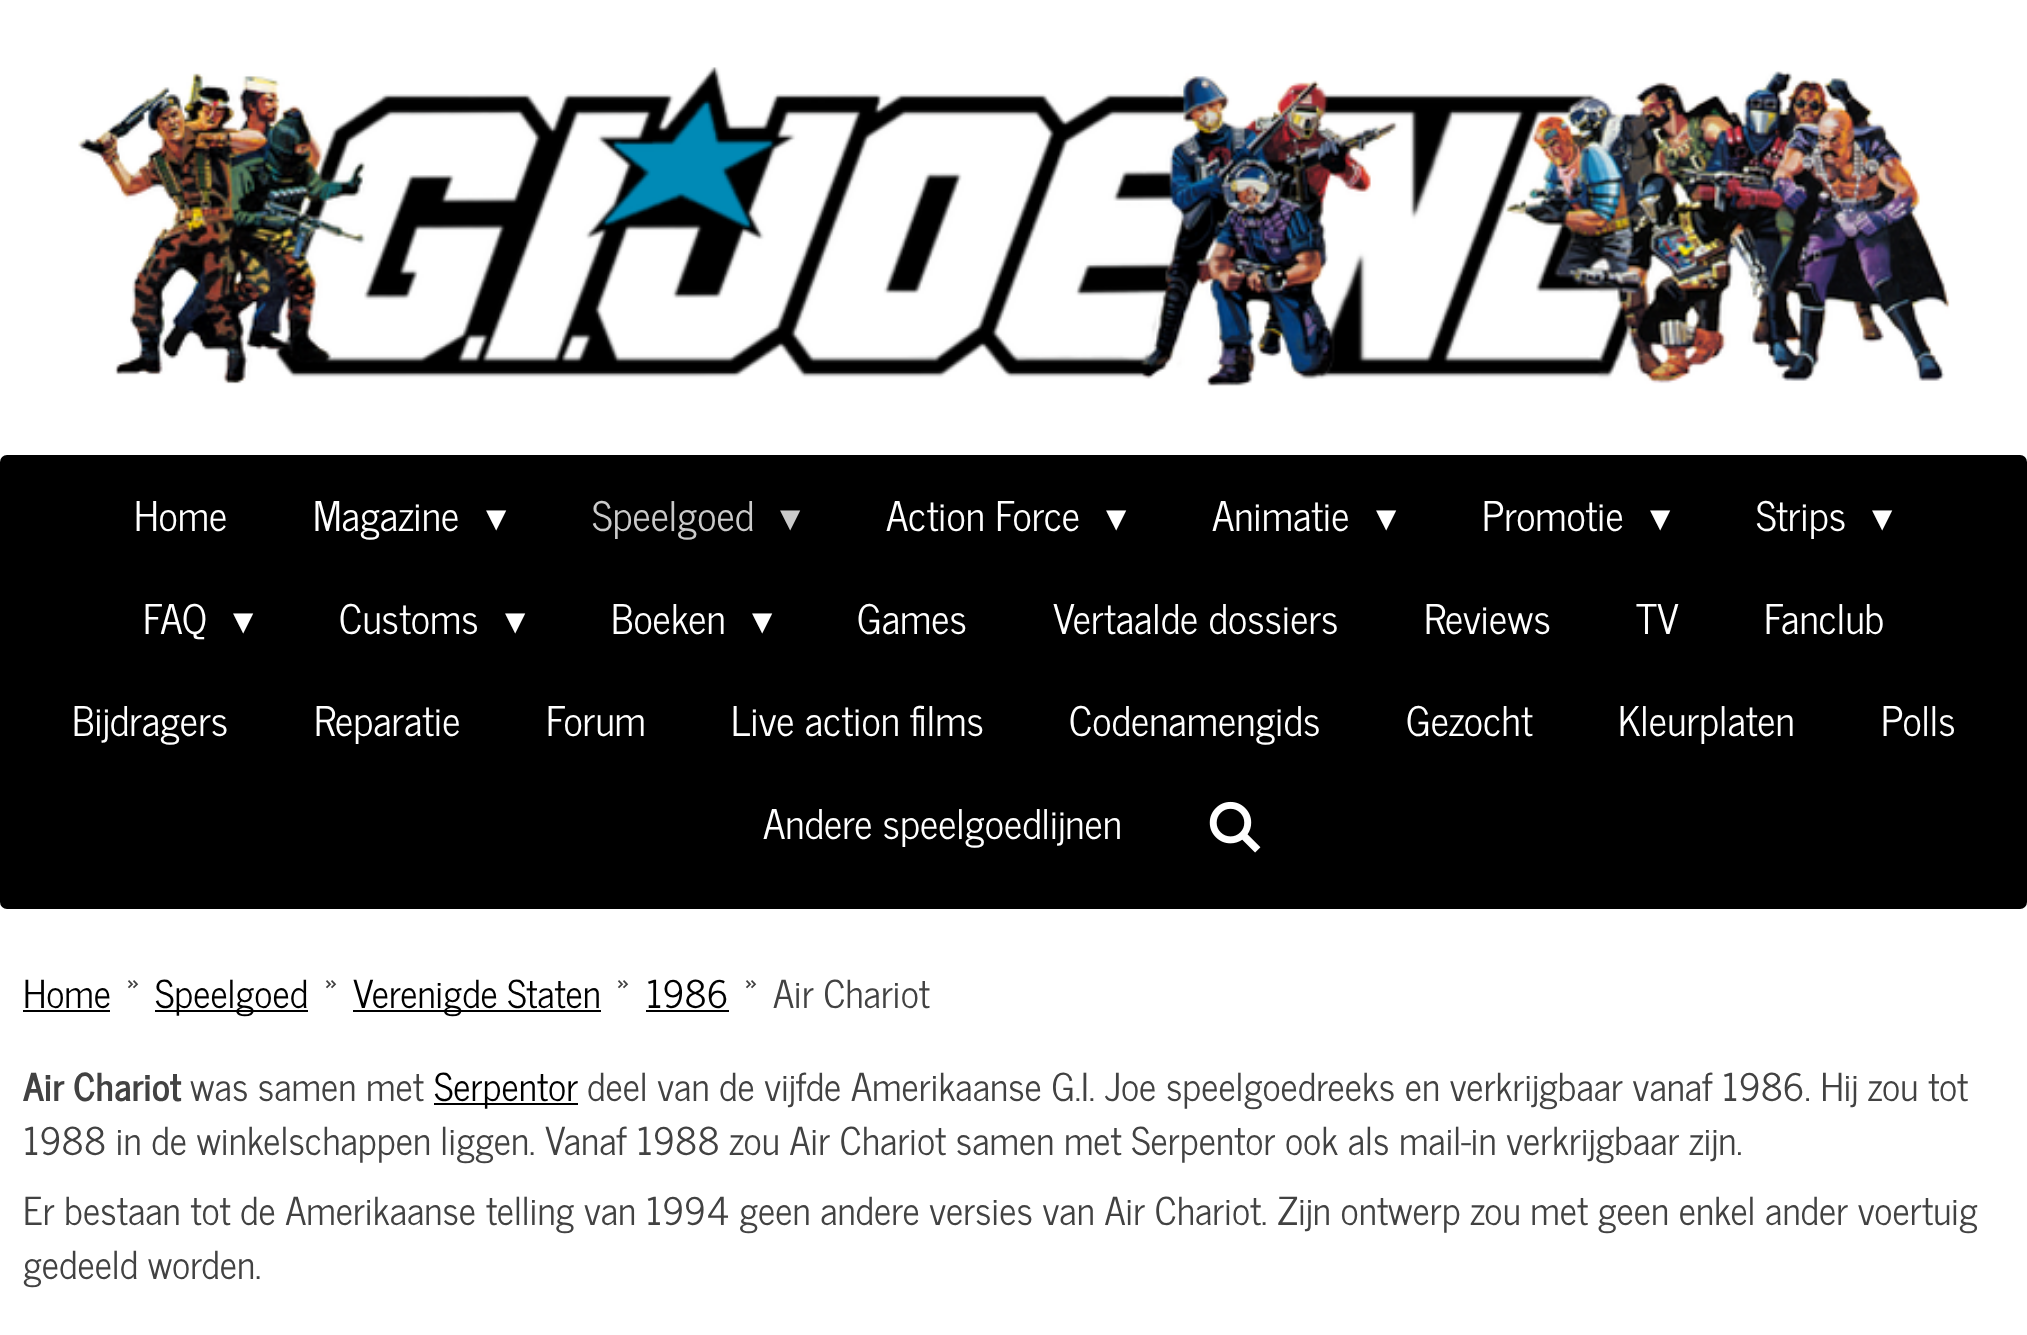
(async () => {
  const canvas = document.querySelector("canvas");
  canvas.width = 2027;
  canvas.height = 1335;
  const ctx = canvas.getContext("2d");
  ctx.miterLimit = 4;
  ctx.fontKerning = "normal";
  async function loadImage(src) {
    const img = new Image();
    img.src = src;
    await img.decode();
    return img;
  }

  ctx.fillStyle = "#ffffff";
  ctx.fillRect(0, 0, 2027, 1335);
  ctx.drawImage(await loadImage("img/1.png"), 78, 67, 1872, 320);
  ctx.fillStyle = "#000000";
  ctx.beginPath();
  ctx.roundRect(0, 455, 2027, 454, 7);
  ctx.fill();
  ctx.drawImage(await loadImage("img/2.png"), 1209, 801, 52, 52);
  for (const [x, y, w, h, color] of [
    [23, 1010, 87, 2, "#000000"],
    [155, 1010, 153, 2, "#000000"],
    [353, 1010, 248, 2, "#000000"],
    [646, 1010, 83, 2, "#000000"],
    [434, 1103, 144, 2, "#000000"],
  ]) {
    ctx.fillStyle = color;
    ctx.fillRect(x, y, w, h);
  }
  ctx.font = "40.5px News Cycle";
  ctx.fillStyle = "#ffffff";
  ctx.fillText("Home", 134, 531);
  ctx.fillText("Magazine", 313, 531);
  ctx.font = "40.5px DejaVu Sans";
  ctx.fillText("▾", 486, 531);
  ctx.font = "40.5px News Cycle";
  ctx.fillStyle = "#cacaca";
  ctx.fillText("Speelgoed", 592, 531);
  ctx.font = "40.5px DejaVu Sans";
  ctx.fillText("▾", 780, 531);
  ctx.font = "40.5px News Cycle";
  ctx.fillStyle = "#ffffff";
  ctx.fillText("Action Force", 886, 531);
  ctx.font = "40.5px DejaVu Sans";
  ctx.fillText("▾", 1106, 531);
  ctx.font = "40.5px News Cycle";
  ctx.fillText("Animatie", 1212, 531);
  ctx.font = "40.5px DejaVu Sans";
  ctx.fillText("▾", 1376, 531);
  ctx.font = "40.5px News Cycle";
  ctx.fillText("Promotie", 1482, 531);
  ctx.font = "40.5px DejaVu Sans";
  ctx.fillText("▾", 1650, 531);
  ctx.font = "40.5px News Cycle";
  ctx.fillText("Strips", 1756, 531);
  ctx.font = "40.5px DejaVu Sans";
  ctx.fillText("▾", 1872, 531);
  ctx.font = "40.5px News Cycle";
  ctx.fillText("FAQ", 143, 634);
  ctx.font = "40.5px DejaVu Sans";
  ctx.fillText("▾", 233, 634);
  ctx.font = "40.5px News Cycle";
  ctx.fillText("Customs", 339, 634);
  ctx.font = "40.5px DejaVu Sans";
  ctx.fillText("▾", 505, 634);
  ctx.font = "40.5px News Cycle";
  ctx.fillText("Boeken", 611, 634);
  ctx.font = "40.5px DejaVu Sans";
  ctx.fillText("▾", 752, 634);
  ctx.font = "40.5px News Cycle";
  for (const [text, x, y] of [
    ["Games", 857, 634],
    ["Vertaalde dossiers", 1053, 634],
    ["Reviews", 1424, 634],
    ["TV", 1636, 634],
    ["Fanclub", 1764, 634],
    ["Bijdragers", 72, 736],
    ["Reparatie", 314, 736],
    ["Forum", 546, 736],
    ["Live action films", 731, 736],
    ["Codenamengids", 1069, 736],
    ["Gezocht", 1406, 736],
    ["Kleurplaten", 1618, 736],
    ["Polls", 1881, 736],
    ["Andere speelgoedlijnen", 763, 839],
  ]) {
    ctx.fillText(text, x, y);
  }
  ctx.font = "38.25px News Cycle";
  ctx.fillStyle = "#000000";
  ctx.fillText("Home", 23, 1008);
  ctx.fillStyle = "#424242";
  ctx.fillText("»", 126, 1008);
  ctx.fillStyle = "#000000";
  ctx.fillText("Speelgoed", 155, 1008);
  ctx.fillStyle = "#424242";
  ctx.fillText("»", 324, 1008);
  ctx.fillStyle = "#000000";
  ctx.fillText("Verenigde Staten", 353, 1008);
  ctx.fillStyle = "#424242";
  ctx.fillText("»", 616, 1008);
  ctx.fillStyle = "#000000";
  ctx.fillText("1986", 646, 1008);
  ctx.fillStyle = "#424242";
  ctx.fillText("»", 744, 1008);
  ctx.fillText("Air Chariot", 773, 1008);
  ctx.font = "bold 38.25px News Cycle";
  ctx.fillText("Air Chariot", 23, 1101);
  ctx.font = "38.25px News Cycle";
  ctx.fillText("was samen met", 190, 1101);
  ctx.fillStyle = "#000000";
  ctx.fillText("Serpentor", 434, 1101);
  ctx.fillStyle = "#424242";
  for (const [text, x, y] of [
    ["deel van de vijfde Amerikaanse G.I. Joe speelgoedreeks en verkrijgbaar vanaf 1986. Hij zou tot", 587, 1101],
    ["1988 in de winkelschappen liggen. Vanaf 1988 zou Air Chariot samen met Serpentor ook als mail-in verkrijgbaar zijn.", 23, 1155],
    ["Er bestaan tot de Amerikaanse telling van 1994 geen andere versies van Air Chariot. Zijn ontwerp zou met geen enkel ander voertuig", 23, 1225],
    ["gedeeld worden.", 23, 1279],
  ]) {
    ctx.fillText(text, x, y);
  }
})();
